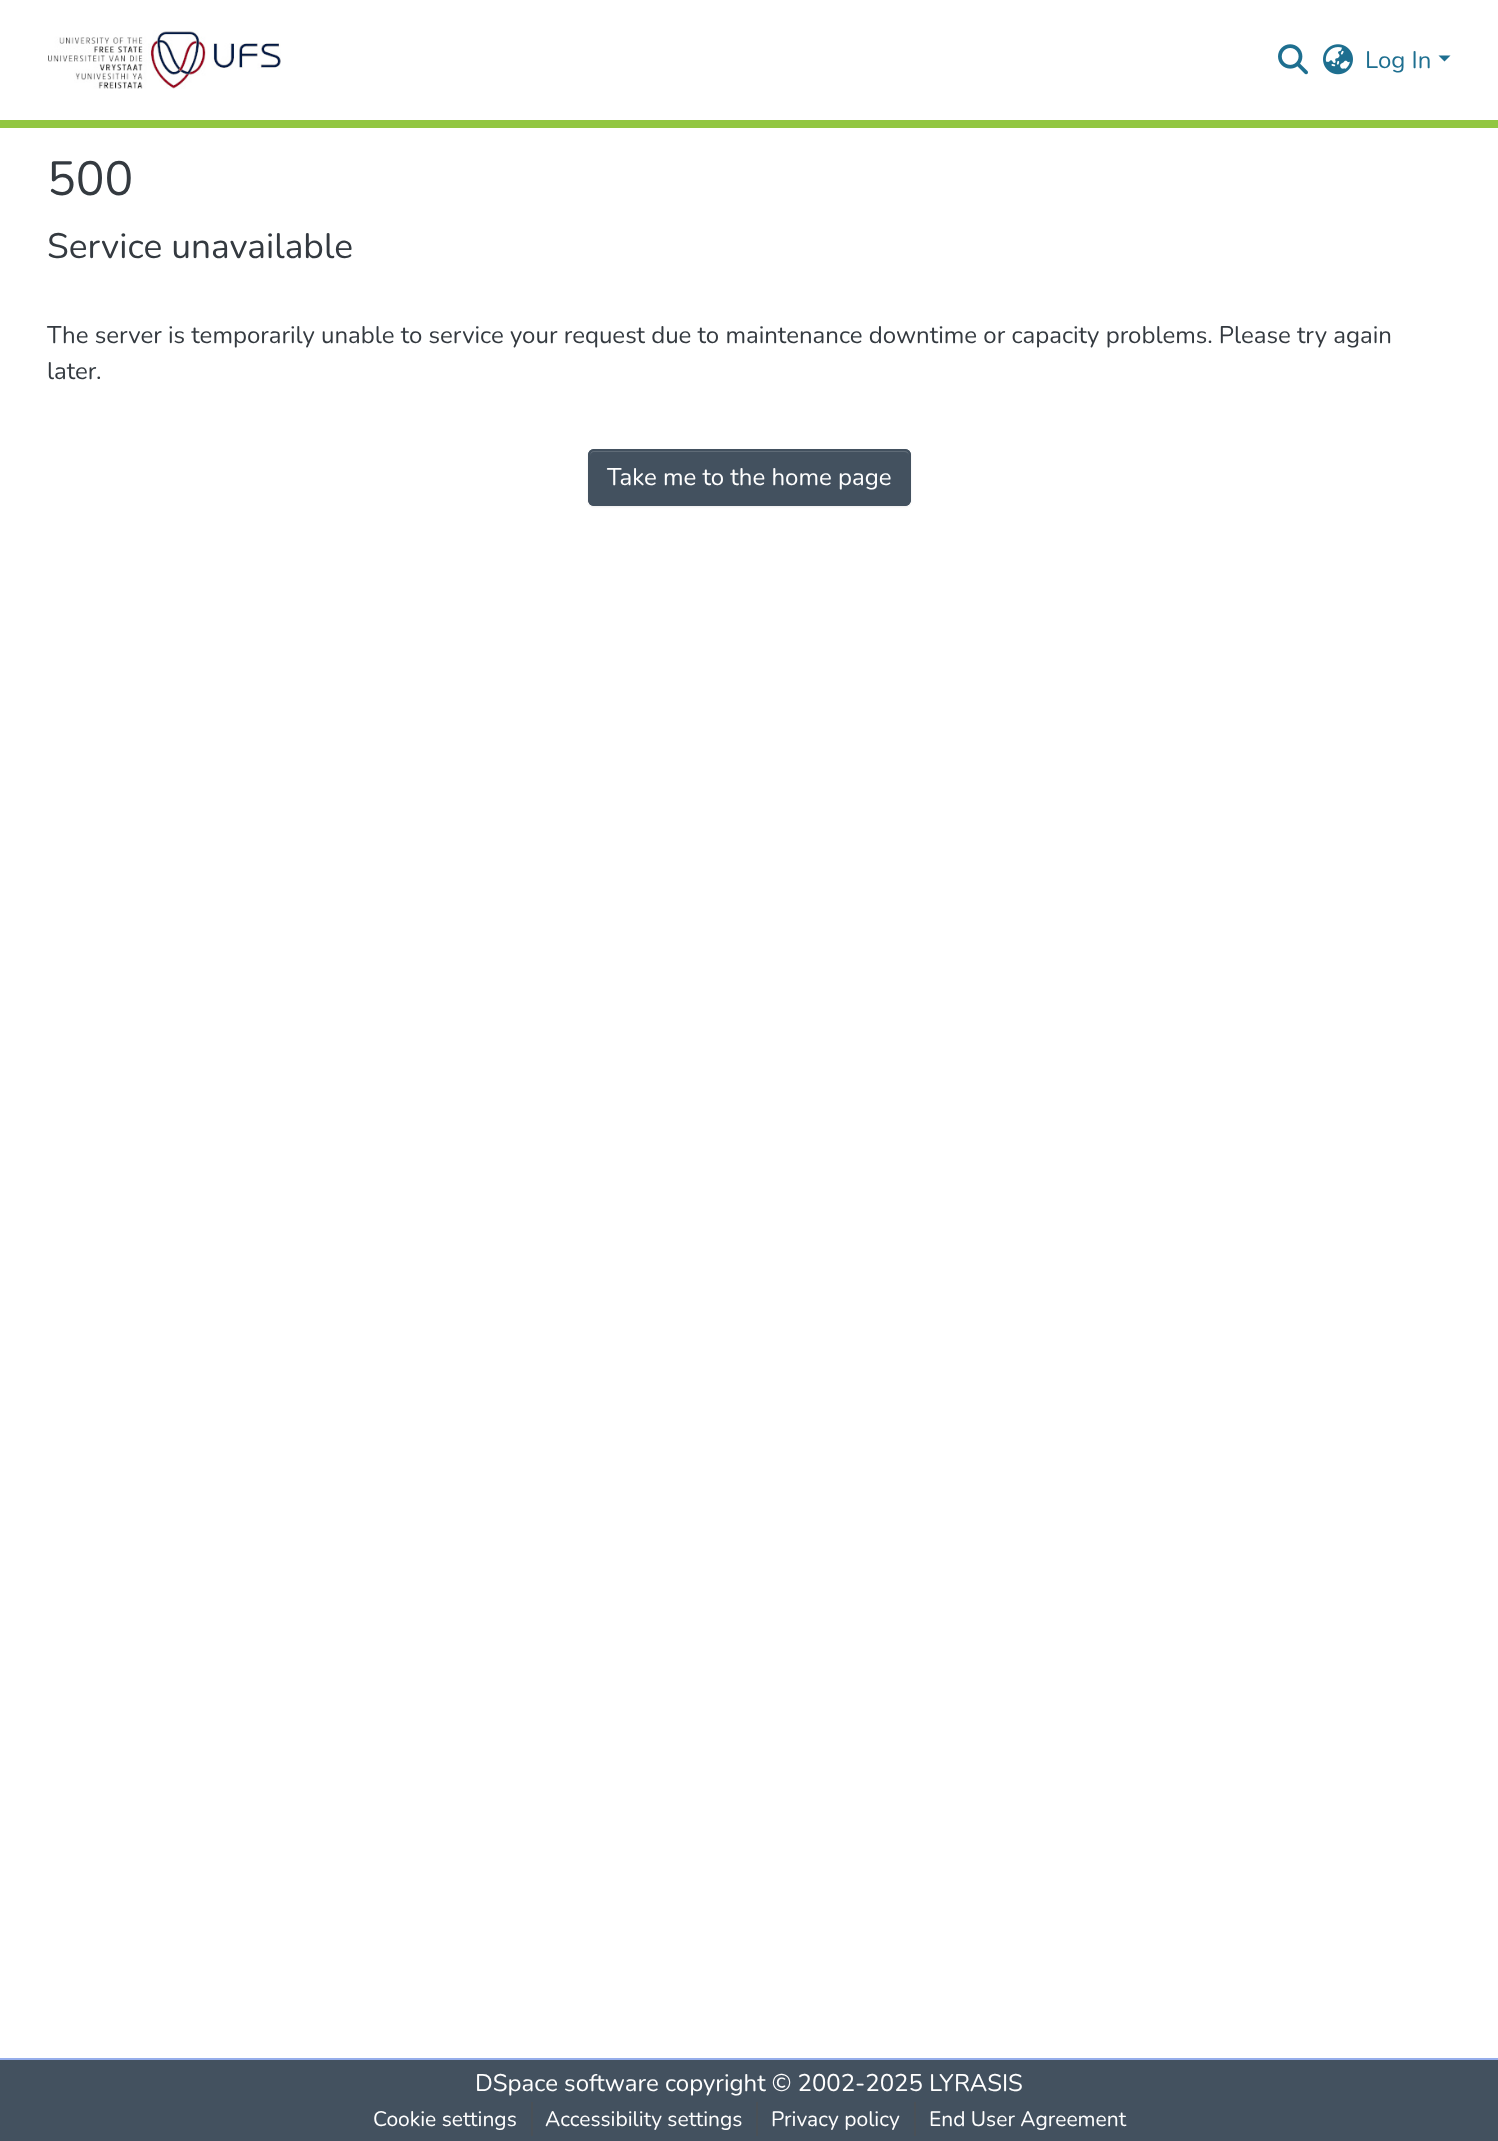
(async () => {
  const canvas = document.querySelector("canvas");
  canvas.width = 1498;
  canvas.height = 2141;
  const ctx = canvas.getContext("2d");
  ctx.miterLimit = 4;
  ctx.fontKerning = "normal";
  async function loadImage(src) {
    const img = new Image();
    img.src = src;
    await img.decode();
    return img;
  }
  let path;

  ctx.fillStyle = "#ffffff";
  ctx.fillRect(0, 0, 1498, 2141);
  ctx.fillStyle = "#92c642";
  ctx.fillRect(0, 120, 1498, 8);
  ctx.drawImage(await loadImage("img/1.png"), 48, 30, 233, 59);
  ctx.drawImage(await loadImage("img/2.png"), 1278, 44, 30, 31);
  ctx.drawImage(await loadImage("img/3.png"), 1323, 44, 30, 31);
  ctx.fillStyle = "#1e6f90";
  path = new Path2D("M1438.5 55.5H1450.5L1444.5 61.5Z");
  ctx.fill(path);
  ctx.fillStyle = "rgba(0, 0, 0, 0.07)";
  ctx.filter = "blur(1px)";
  ctx.beginPath();
  ctx.roundRect(588, 450, 323, 57, 6);
  ctx.fill();
  ctx.filter = "none";
  ctx.fillStyle = "#43515f";
  ctx.beginPath();
  ctx.roundRect(588, 449, 323, 57, 6);
  ctx.fill();
  ctx.fillStyle = "#5f6b77";
  path = new Path2D("M594 452H904C907 452 909 454 909 456C909 453 907 450 904 450H595C592 450 590 453 590 456C590 454 592 452 594 452Z");
  ctx.fill(path);
  ctx.beginPath();
  ctx.roundRect(589, 450, 321, 55, 5);
  ctx.strokeStyle = "#43515f";
  ctx.lineWidth = 2;
  ctx.stroke();
  for (const [x, y, w, h, color] of [
    [0, 2060, 1498, 81, "#43515f"],
    [0, 2058, 1498, 2, "#95adea"],
    [531, 2102, 2, 34, "#495057"],
    [756, 2102, 2, 34, "#495057"],
    [914, 2102, 2, 34, "#495057"],
  ]) {
    ctx.fillStyle = color;
    ctx.fillRect(x, y, w, h);
  }
  ctx.font = "24px Nunito";
  ctx.fillStyle = "#1e6f90";
  ctx.fillText("Log In", 1365, 68);
  ctx.font = "48px Nunito";
  ctx.fillStyle = "#343a40";
  ctx.fillText("500", 47, 195);
  ctx.font = "35.25px Nunito";
  ctx.fillText("Service unavailable", 47, 258);
  ctx.font = "24px Nunito";
  ctx.fillText("The server is temporarily unable to service your request due to maintenance downtime or capacity problems. Please try again", 47, 343);
  ctx.fillText("later.", 47, 379);
  ctx.fillStyle = "#ffffff";
  ctx.fillText("Take me to the home page", 607, 485);
  ctx.fillText("DSpace software copyright © 2002-2025 LYRASIS", 475, 2091);
  ctx.font = "21px Nunito";
  for (const [text, x, y] of [
    ["Cookie settings", 373, 2126],
    ["Accessibility settings", 545, 2126],
    ["Privacy policy", 771, 2126],
    ["End User Agreement", 929, 2126],
  ]) {
    ctx.fillText(text, x, y);
  }
})();
